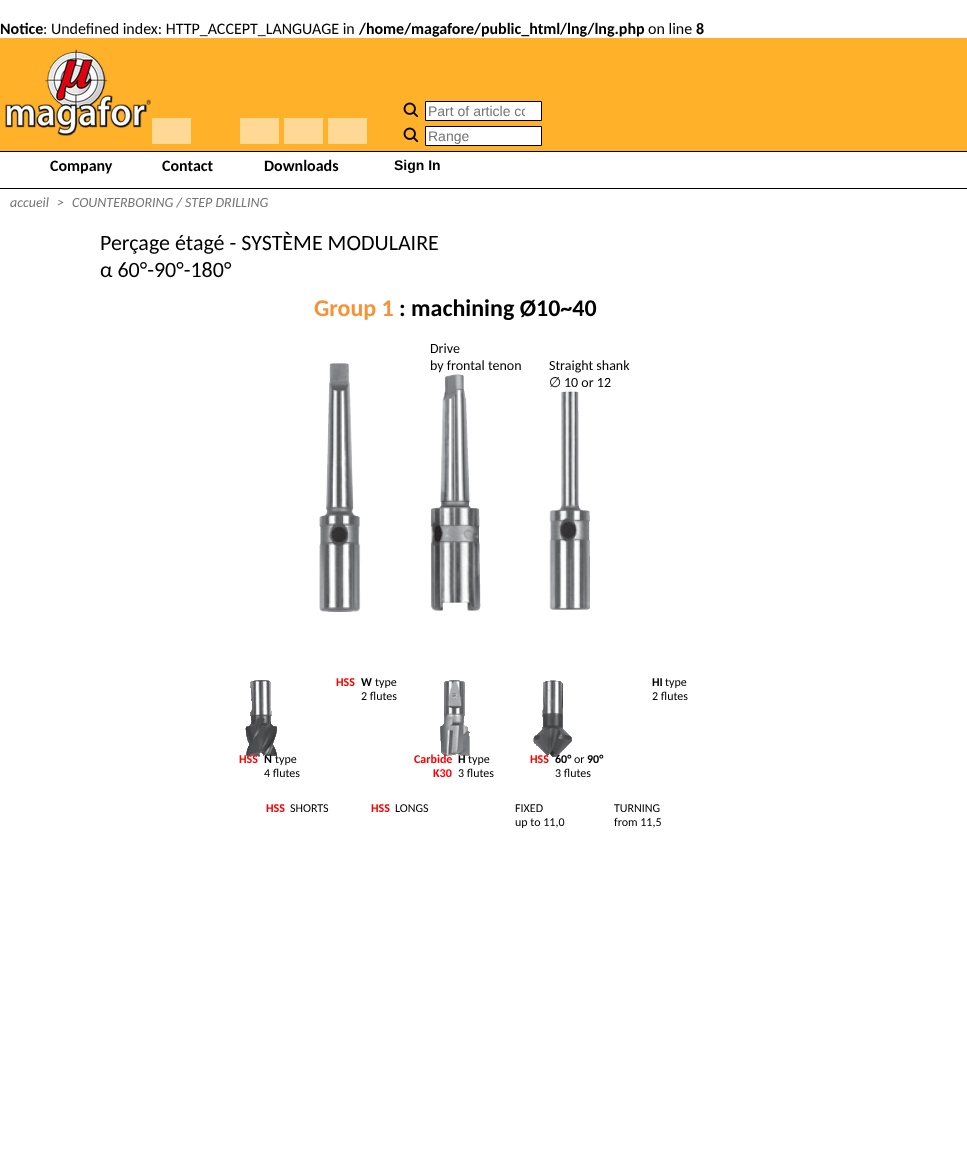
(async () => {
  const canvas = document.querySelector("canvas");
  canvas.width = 967;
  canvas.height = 1174;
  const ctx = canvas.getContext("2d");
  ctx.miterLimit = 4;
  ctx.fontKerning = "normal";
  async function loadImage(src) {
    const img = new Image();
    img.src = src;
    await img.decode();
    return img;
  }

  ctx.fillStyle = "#ffffff";
  ctx.fillRect(0, 0, 967, 1174);
  ctx.fillStyle = "#ffb12a";
  ctx.fillRect(0, 38, 967, 113);
  ctx.fillStyle = "#000000";
  ctx.fillRect(0, 151, 967, 1);
  ctx.drawImage(await loadImage("img/1.png"), 5, 49, 146, 87);
  for (const [x, y, w, h, color] of [
    [152, 118, 39, 26, "#ffd895"],
    [240, 118, 39, 26, "#ffd895"],
    [284, 118, 39, 26, "#ffd895"],
    [328, 118, 39, 26, "#ffd895"],
  ]) {
    ctx.fillStyle = color;
    ctx.fillRect(x, y, w, h);
  }
  ctx.drawImage(await loadImage("img/2.png"), 403, 102, 16, 16);
  ctx.fillStyle = "#ffffff";
  ctx.beginPath();
  ctx.rect(425.5, 101.5, 116, 19);
  ctx.fill();
  ctx.strokeStyle = "#000000";
  ctx.stroke();
  ctx.drawImage(await loadImage("img/2.png"), 403, 127, 16, 16);
  ctx.beginPath();
  ctx.rect(425.5, 126.5, 116, 19);
  ctx.fill();
  ctx.stroke();
  ctx.fillStyle = "#000000";
  ctx.fillRect(0, 188, 967, 1);
  ctx.drawImage(await loadImage("img/3.png"), 319, 363, 42, 249);
  ctx.drawImage(await loadImage("img/4.png"), 430, 374, 51, 237);
  ctx.drawImage(await loadImage("img/5.png"), 549, 391, 41, 219);
  ctx.drawImage(await loadImage("img/6.png"), 245, 680, 32, 77);
  ctx.drawImage(await loadImage("img/7.png"), 440, 680, 30, 77);
  ctx.drawImage(await loadImage("img/8.png"), 533, 680, 39, 77);
  ctx.font = "bold 16px Carlito";
  ctx.fillText("Notice", 0, 34);
  ctx.font = "16px Carlito";
  ctx.fillText(": Undefined index: HTTP_ACCEPT_LANGUAGE in", 43, 34);
  ctx.font = "bold 16px Carlito";
  ctx.fillText("/home/magafore/public_html/lng/lng.php", 359, 34);
  ctx.font = "16px Carlito";
  ctx.fillText("on line", 648, 34);
  ctx.font = "bold 16px Carlito";
  ctx.fillText("8", 696, 34);
  ctx.save();
  ctx.beginPath();
  ctx.rect(428, 103, 97, 16);
  ctx.clip();
  ctx.font = "14px Liberation Sans";
  ctx.fillStyle = "#757575";
  ctx.fillText("Part of article co", 428, 116);
  ctx.restore();
  ctx.font = "14px Liberation Sans";
  ctx.fillStyle = "#757575";
  ctx.fillText("Range", 428, 141);
  ctx.font = "bold 16px Carlito";
  ctx.fillStyle = "#000000";
  for (const [text, x, y] of [
    ["Company", 50, 171],
    ["Contact", 162, 171],
    ["Downloads", 264, 171],
  ]) {
    ctx.fillText(text, x, y);
  }
  ctx.font = "bold 14px Liberation Sans";
  ctx.fillText("Sign In", 394, 170);
  ctx.font = "italic 14px Carlito";
  ctx.fillStyle = "#757575";
  for (const [text, x, y] of [
    ["accueil", 10, 207],
    [">", 57, 207],
    ["COUNTERBORING / STEP DRILLING", 72, 207],
  ]) {
    ctx.fillText(text, x, y);
  }
  ctx.font = "22px Carlito";
  ctx.fillStyle = "#000000";
  ctx.fillText("Perçage étagé - SYSTÈME MODULAIRE", 100, 250);
  ctx.fillText("α 60°-90°-180°", 100, 277);
  ctx.font = "bold 24px Carlito";
  ctx.fillStyle = "#f69238";
  ctx.fillText("Group 1", 314, 316);
  ctx.fillStyle = "#000000";
  ctx.fillText(": machining Ø10~40", 399, 316);
  ctx.font = "14px Carlito";
  for (const [text, x, y] of [
    ["Drive", 430, 353],
    ["by frontal tenon", 430, 370],
    ["Straight shank", 549, 370],
  ]) {
    ctx.fillText(text, x, y);
  }
  ctx.font = "14px DejaVu Sans";
  ctx.fillText("∅", 549, 387);
  ctx.font = "14px Carlito";
  ctx.fillText("10 or 12", 564, 387);
  ctx.font = "bold 12px Carlito";
  ctx.fillStyle = "#ff0000";
  ctx.fillText("HSS", 336, 686);
  ctx.fillStyle = "#000000";
  ctx.fillText("W", 361, 686);
  ctx.font = "12px Carlito";
  ctx.fillText("type", 375, 686);
  ctx.fillText("2 flutes", 361, 700);
  ctx.font = "bold 12px Carlito";
  ctx.fillText("HI", 652, 686);
  ctx.font = "12px Carlito";
  ctx.fillText("type", 665, 686);
  ctx.fillText("2 flutes", 652, 700);
  ctx.font = "bold 12px Carlito";
  ctx.fillStyle = "#ff0000";
  ctx.fillText("HSS", 239, 763);
  ctx.fillStyle = "#000000";
  ctx.fillText("N", 264, 763);
  ctx.font = "12px Carlito";
  ctx.fillText("type", 275, 763);
  ctx.fillText("4 flutes", 264, 777);
  ctx.font = "bold 12px Carlito";
  ctx.fillStyle = "#ff0000";
  ctx.fillText("Carbide", 414, 763);
  ctx.fillText("K30", 433, 777);
  ctx.fillStyle = "#000000";
  ctx.fillText("H", 458, 763);
  ctx.font = "12px Carlito";
  ctx.fillText("type", 468, 763);
  ctx.fillText("3 flutes", 458, 777);
  ctx.font = "bold 12px Carlito";
  ctx.fillStyle = "#ff0000";
  ctx.fillText("HSS", 530, 763);
  ctx.fillStyle = "#000000";
  ctx.fillText("60°", 555, 763);
  ctx.font = "12px Carlito";
  ctx.fillText("or", 574, 763);
  ctx.font = "bold 12px Carlito";
  ctx.fillText("90°", 587, 763);
  ctx.font = "12px Carlito";
  ctx.fillText("3 flutes", 555, 777);
  ctx.font = "bold 12px Carlito";
  ctx.fillStyle = "#ff0000";
  ctx.fillText("HSS", 266, 812);
  ctx.font = "12px Carlito";
  ctx.fillStyle = "#000000";
  ctx.fillText("SHORTS", 290, 812);
  ctx.font = "bold 12px Carlito";
  ctx.fillStyle = "#ff0000";
  ctx.fillText("HSS", 371, 812);
  ctx.font = "12px Carlito";
  ctx.fillStyle = "#000000";
  for (const [text, x, y] of [
    ["LONGS", 395, 812],
    ["FIXED", 515, 812],
    ["up to 11,0", 515, 826],
    ["TURNING", 614, 812],
    ["from 11,5", 614, 826],
  ]) {
    ctx.fillText(text, x, y);
  }
})();
